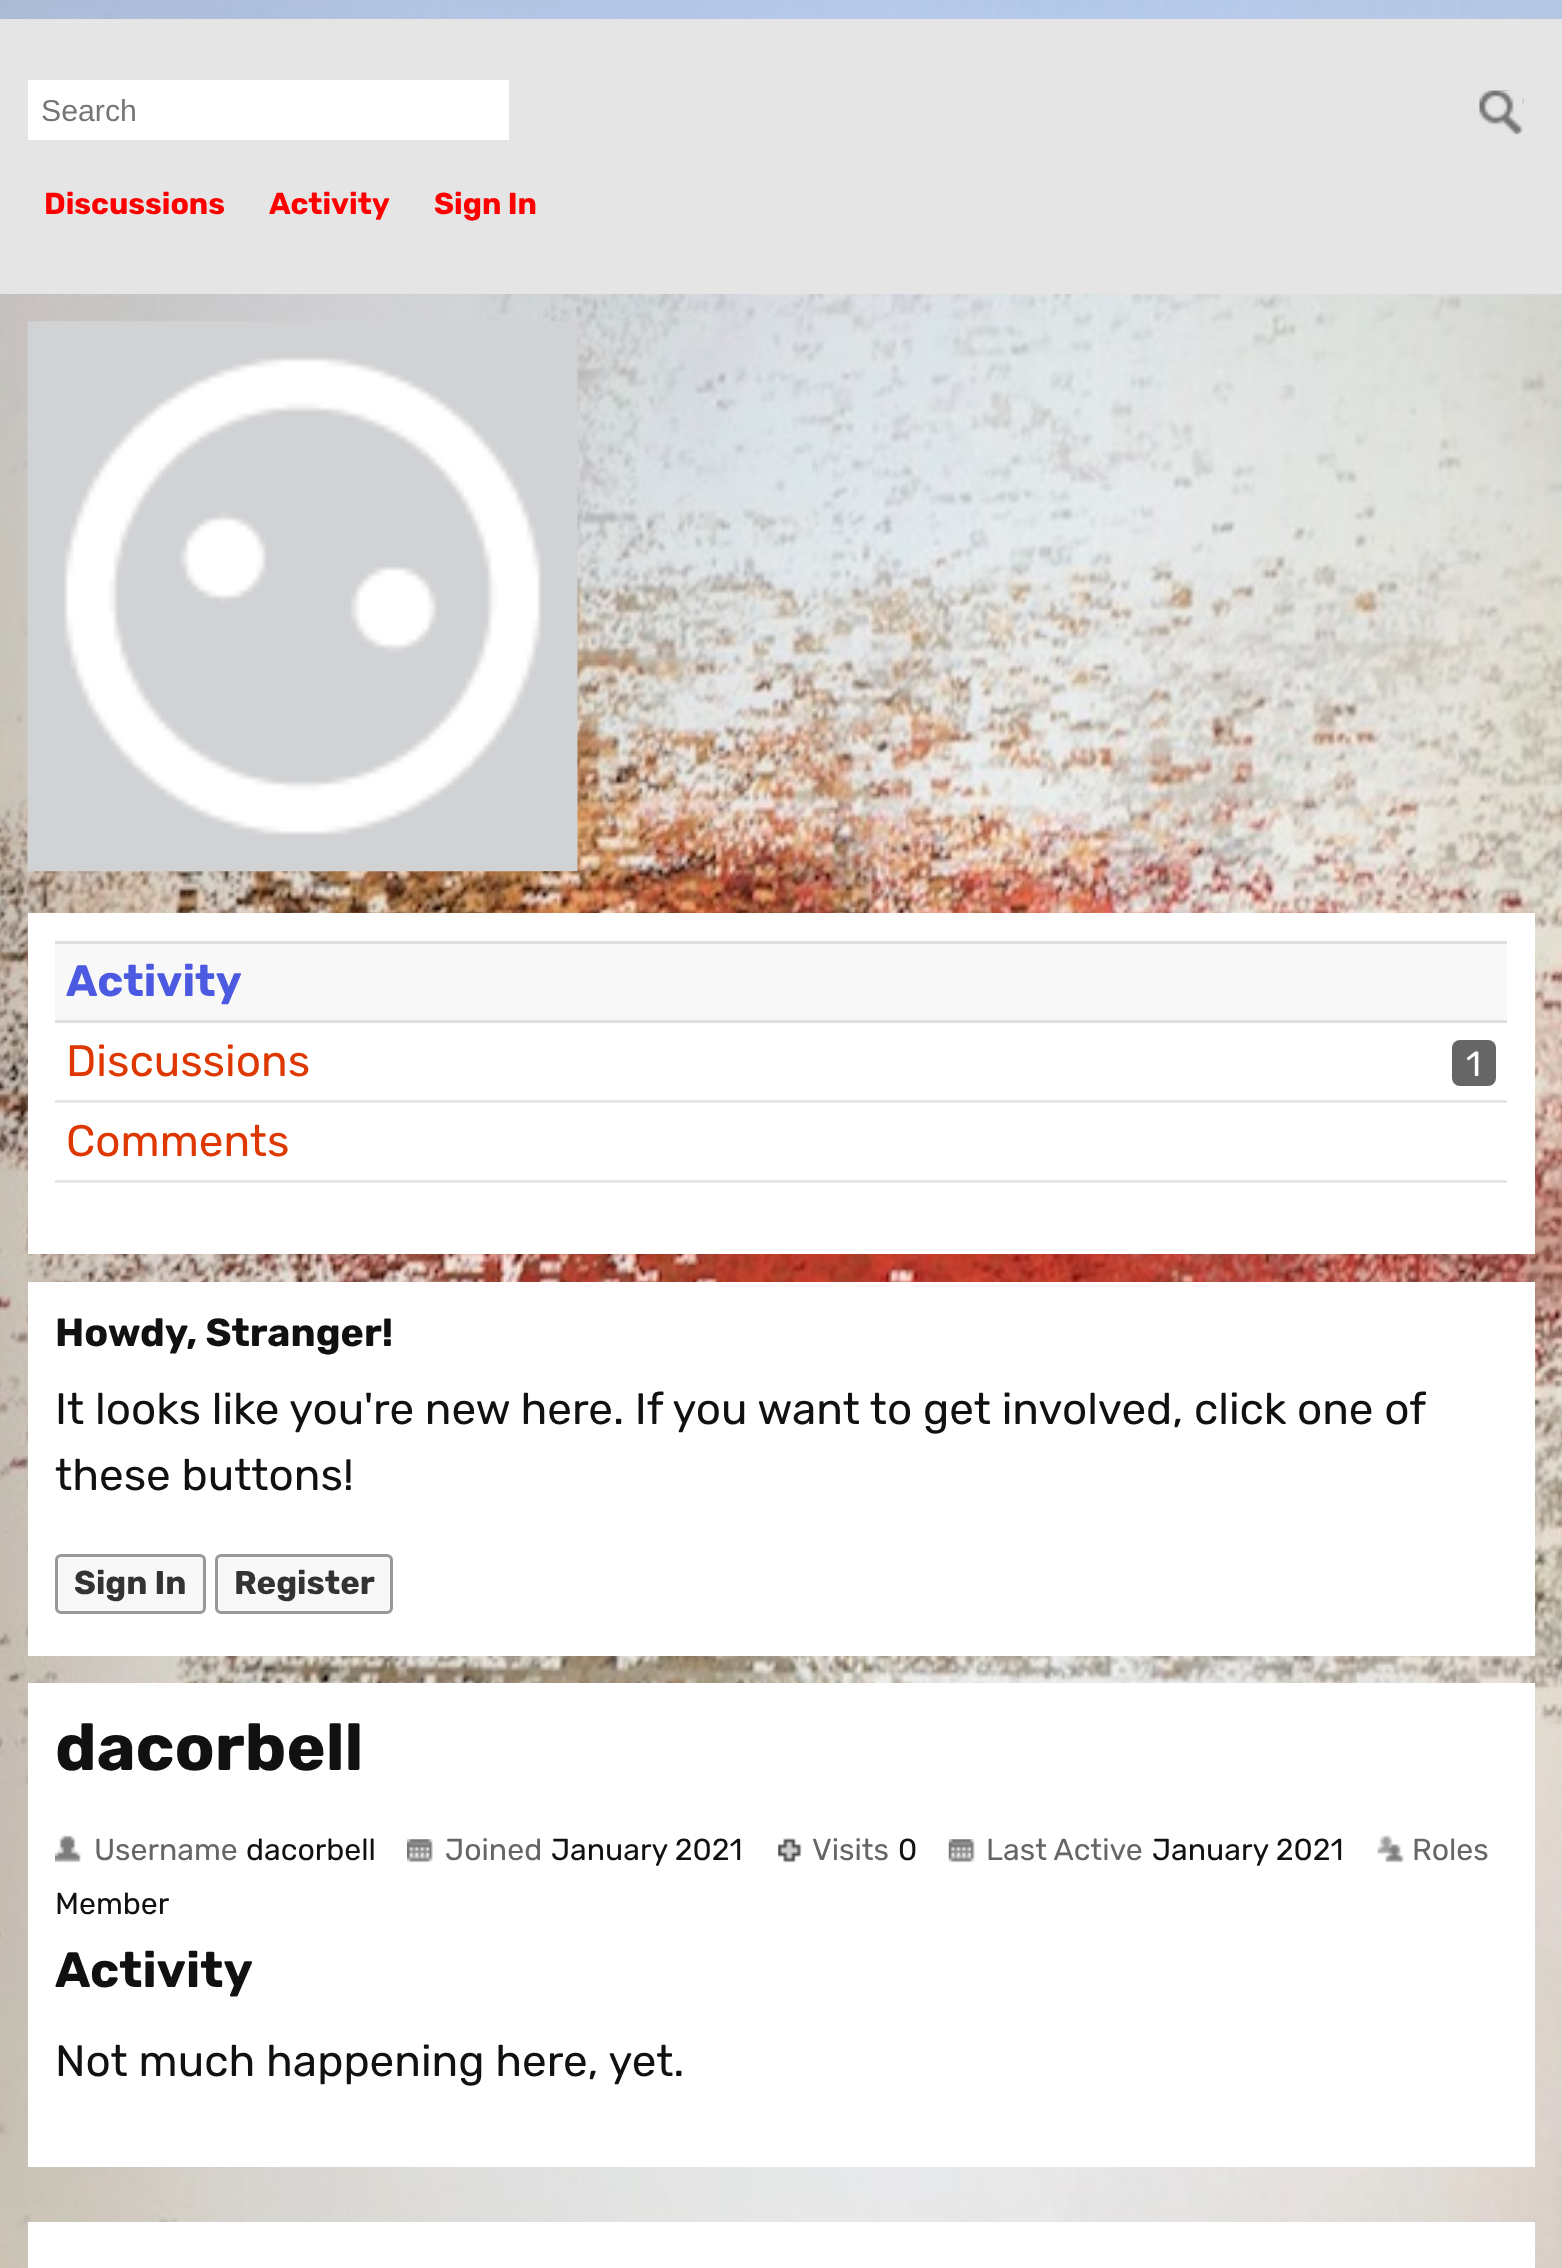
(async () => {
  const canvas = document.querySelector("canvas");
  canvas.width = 1562;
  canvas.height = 2268;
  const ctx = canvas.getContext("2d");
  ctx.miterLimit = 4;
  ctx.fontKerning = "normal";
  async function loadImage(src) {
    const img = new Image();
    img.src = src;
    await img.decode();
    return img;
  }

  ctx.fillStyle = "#ffffff";
  ctx.fillRect(0, 0, 1562, 2268);
  ctx.drawImage(await loadImage("img/1.png"), 0, 0, 1562, 2268);
  for (const [x, y, w, h, color] of [
    [0, 0, 1562, 19, "rgba(159, 193, 252, 0.5)"],
    [0, 19, 1562, 275, "#e5e5e5"],
    [28, 80, 481, 60, "#ffffff"],
  ]) {
    ctx.fillStyle = color;
    ctx.fillRect(x, y, w, h);
  }
  ctx.drawImage(await loadImage("img/2.png"), 1479, 90, 45, 45);
  ctx.drawImage(await loadImage("img/3.png"), 27, 321, 551, 551);
  for (const [x, y, w, h, color] of [
    [28, 913, 1507, 341, "#ffffff"],
    [55, 944, 1452, 76, "#f8f8f8"],
    [55, 941, 1452, 3, "#dfdfdf"],
    [55, 1020, 1452, 3, "#dfdfdf"],
    [55, 1100, 1452, 3, "#e6e6e6"],
  ]) {
    ctx.fillStyle = color;
    ctx.fillRect(x, y, w, h);
  }
  ctx.fillStyle = "#666666";
  ctx.beginPath();
  ctx.roundRect(1452, 1040, 44, 46, 8);
  ctx.fill();
  ctx.fillStyle = "#e6e6e6";
  ctx.fillRect(55, 1180, 1452, 3);
  ctx.fillStyle = "#ffffff";
  ctx.fillRect(28, 1282, 1507, 374);
  ctx.fillStyle = "#f8f8f8";
  ctx.beginPath();
  ctx.roundRect(56.5, 1555.5, 148, 57, 4.5);
  ctx.fill();
  ctx.strokeStyle = "#999999";
  ctx.lineWidth = 3;
  ctx.stroke();
  ctx.beginPath();
  ctx.roundRect(216.5, 1555.5, 175, 57, 4.5);
  ctx.fill();
  ctx.stroke();
  ctx.fillStyle = "#ffffff";
  ctx.fillRect(28, 1683, 1507, 484);
  ctx.drawImage(await loadImage("img/4.png"), 55, 1835, 26, 28);
  ctx.drawImage(await loadImage("img/5.png"), 407, 1839, 26, 24);
  ctx.drawImage(await loadImage("img/6.png"), 778, 1838, 24, 25);
  ctx.drawImage(await loadImage("img/7.png"), 948, 1839, 27, 24);
  ctx.drawImage(await loadImage("img/8.png"), 1377, 1835, 27, 28);
  ctx.fillRect(28, 2222, 1507, 46);
  ctx.font = "30.25px Liberation Sans";
  ctx.fillStyle = "#757575";
  ctx.fillText("Search", 41, 121);
  ctx.font = "bold 30.25px Rubik";
  ctx.fillStyle = "#ff0000";
  for (const [text, x, y] of [
    ["Discussions", 44, 214],
    ["Activity", 269, 214],
    ["Sign In", 434, 214],
  ]) {
    ctx.fillText(text, x, y);
  }
  ctx.font = "bold 44px Rubik";
  ctx.fillStyle = "#4c5ae1";
  ctx.fillText("Activity", 66, 996);
  ctx.font = "44px Rubik";
  ctx.fillStyle = "#de3800";
  ctx.fillText("Discussions", 66, 1076);
  ctx.font = "35px Rubik";
  ctx.fillStyle = "#ffffff";
  ctx.fillText("1", 1466, 1076);
  ctx.font = "44px Rubik";
  ctx.fillStyle = "#de3800";
  ctx.fillText("Comments", 66, 1156);
  ctx.font = "bold 39.25px Rubik";
  ctx.fillStyle = "#111111";
  ctx.fillText("Howdy, Stranger!", 55, 1346);
  ctx.font = "44px Rubik";
  ctx.fillText("It looks like you're new here. If you want to get involved, click one of", 55, 1424);
  ctx.fillText("these buttons!", 55, 1490);
  ctx.font = "bold 33px Rubik";
  ctx.fillStyle = "#333333";
  ctx.fillText("Sign In", 74, 1594);
  ctx.fillText("Register", 234, 1594);
  ctx.font = "bold 66px Rubik";
  ctx.fillStyle = "#111111";
  ctx.fillText("dacorbell", 55, 1770);
  ctx.font = "30.25px Rubik";
  ctx.fillStyle = "#666666";
  ctx.fillText("Username", 94, 1860);
  ctx.fillStyle = "#111111";
  ctx.fillText("dacorbell", 246, 1860);
  ctx.fillStyle = "#666666";
  ctx.fillText("Joined", 445, 1860);
  ctx.fillStyle = "#111111";
  ctx.fillText("January 2021", 551, 1860);
  ctx.fillStyle = "#666666";
  ctx.fillText("Visits", 812, 1860);
  ctx.fillStyle = "#111111";
  ctx.fillText("0", 898, 1860);
  ctx.fillStyle = "#666666";
  ctx.fillText("Last Active", 986, 1860);
  ctx.fillStyle = "#111111";
  ctx.fillText("January 2021", 1152, 1860);
  ctx.fillStyle = "#666666";
  ctx.fillText("Roles", 1412, 1860);
  ctx.fillStyle = "#111111";
  ctx.fillText("Member", 55, 1914);
  ctx.font = "bold 49.5px Rubik";
  ctx.fillText("Activity", 55, 1987);
  ctx.font = "44px Rubik";
  ctx.fillText("Not much happening here, yet.", 55, 2076);
})();
